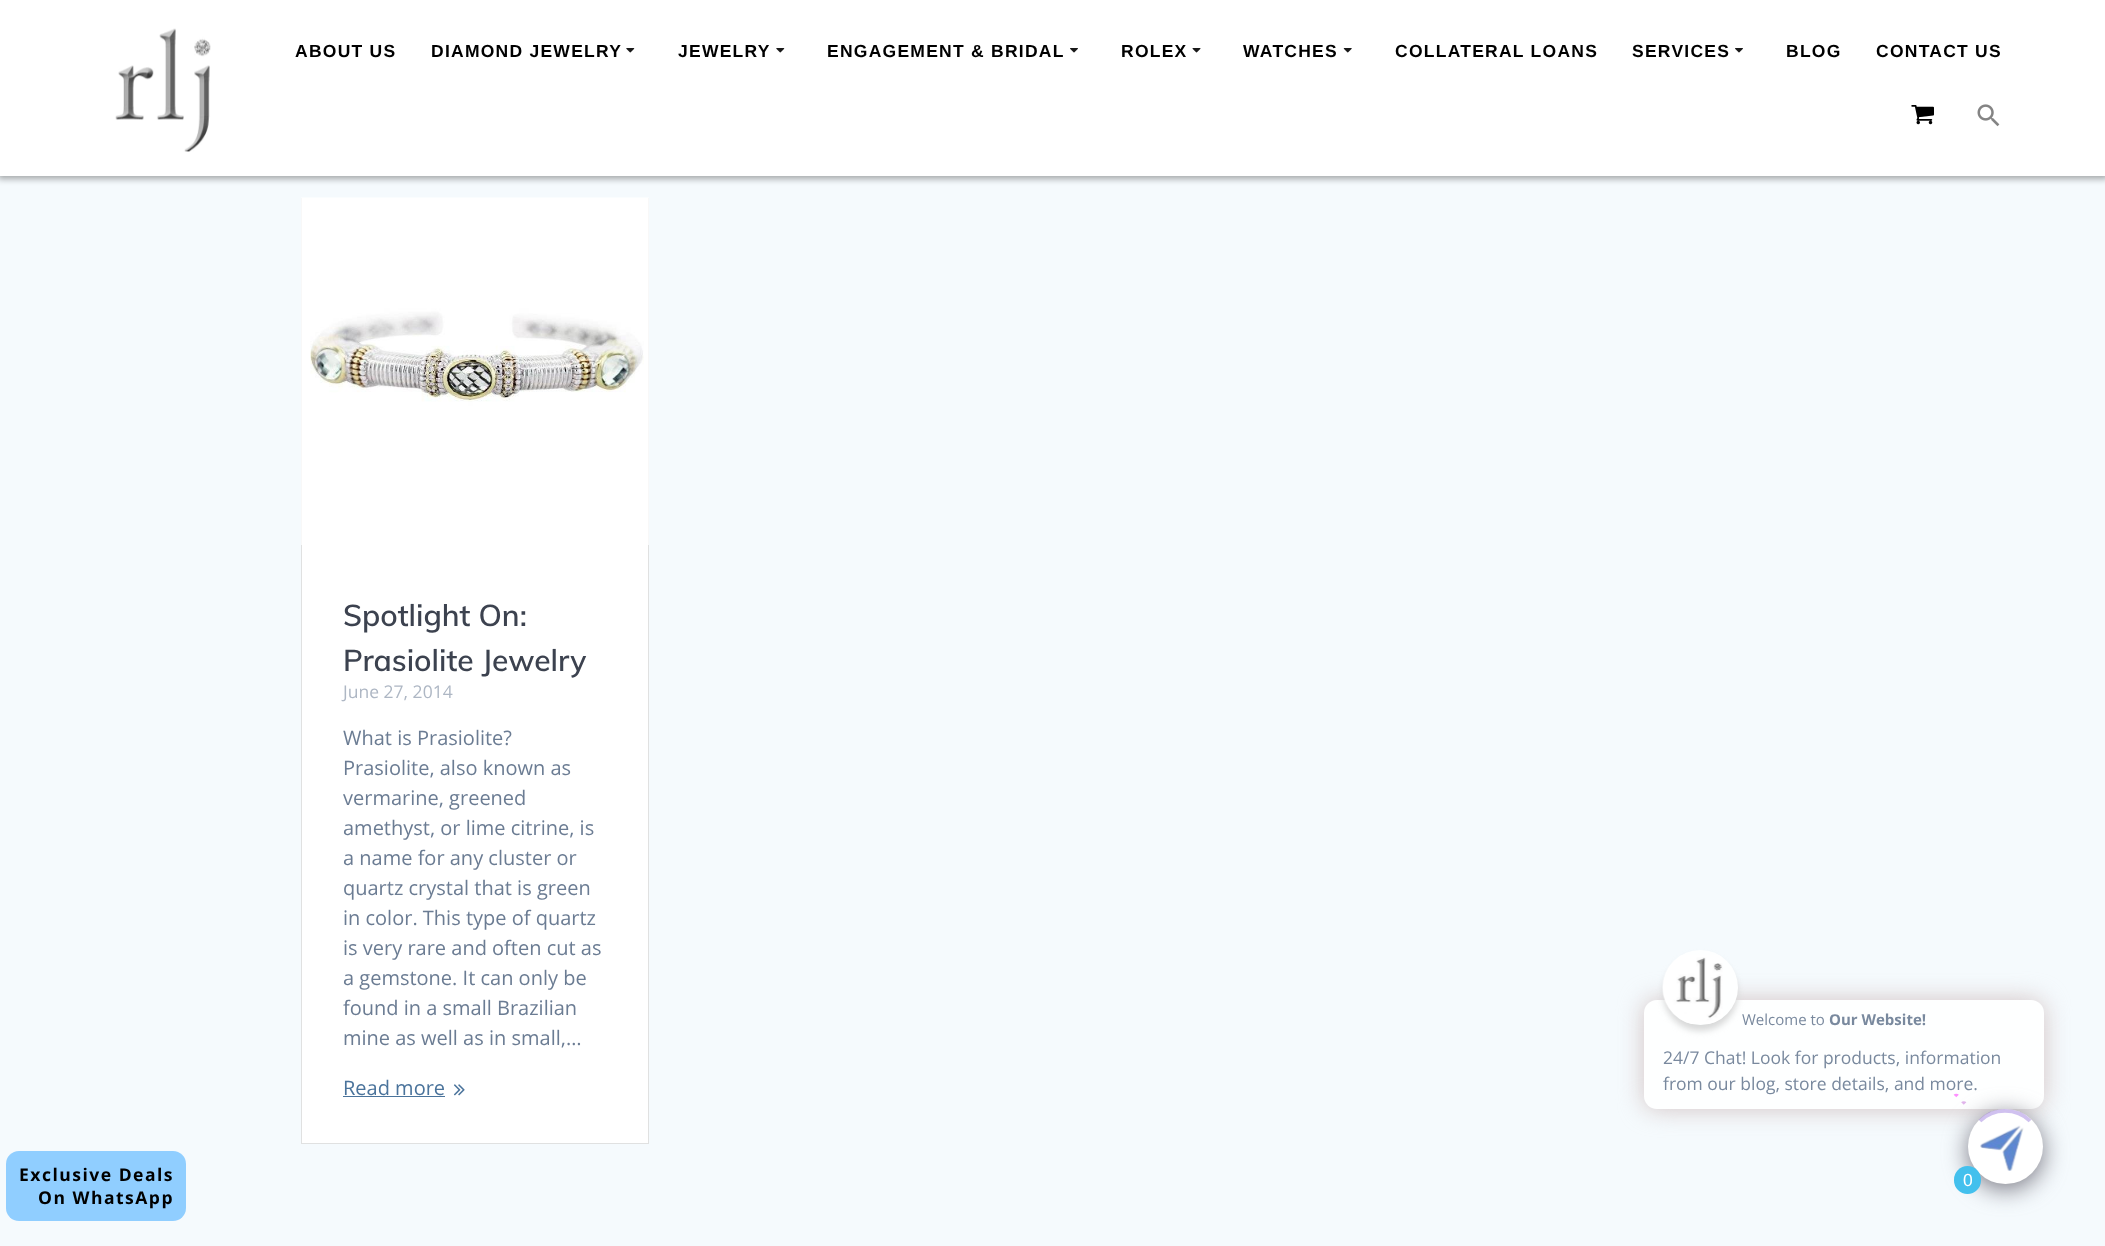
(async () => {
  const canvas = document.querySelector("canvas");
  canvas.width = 2105;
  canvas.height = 1246;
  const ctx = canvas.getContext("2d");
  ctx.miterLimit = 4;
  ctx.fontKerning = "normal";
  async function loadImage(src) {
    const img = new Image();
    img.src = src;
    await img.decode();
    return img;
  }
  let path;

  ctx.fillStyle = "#f5fafd";
  ctx.fillRect(0, 0, 2105, 1246);
  ctx.fillStyle = "rgba(0, 0, 0, 0.33)";
  ctx.filter = "blur(3px)";
  ctx.beginPath();
  ctx.rect(-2, -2, 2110, 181);
  ctx.fill();
  ctx.filter = "none";
  ctx.fillStyle = "#ffffff";
  ctx.fillRect(0, 0, 2105, 176);
  ctx.drawImage(await loadImage("img/1.png"), 115, 28, 96, 124);
  ctx.drawImage(await loadImage("img/2.png"), 626, 48, 9, 5);
  ctx.drawImage(await loadImage("img/2.png"), 776, 48, 9, 5);
  ctx.drawImage(await loadImage("img/3.png"), 1070, 48, 8, 5);
  ctx.drawImage(await loadImage("img/4.png"), 1192, 48, 9, 5);
  ctx.drawImage(await loadImage("img/5.png"), 1343, 48, 9, 5);
  ctx.drawImage(await loadImage("img/3.png"), 1735, 48, 8, 5);
  ctx.drawImage(await loadImage("img/6.png"), 1911, 105, 23, 20);
  ctx.drawImage(await loadImage("img/7.png"), 1977, 104, 23, 23);
  ctx.fillStyle = "#90ceff";
  ctx.beginPath();
  ctx.roundRect(6, 1151, 180, 70, 13);
  ctx.fill();
  ctx.fillStyle = "#ffffff";
  ctx.fillRect(302, 545, 346, 598);
  ctx.strokeStyle = "#e0e1e1";
  ctx.strokeRect(301.5, 198.5, 347, 945);
  ctx.drawImage(await loadImage("img/8.png"), 301, 197, 348, 348);
  ctx.fillStyle = "#4a739b";
  ctx.fillRect(343, 1096, 102, 1);
  ctx.drawImage(await loadImage("img/9.png"), 453, 1084, 12, 12);
  ctx.fillStyle = "#d2c3c3";
  ctx.filter = "blur(12.5px)";
  ctx.beginPath();
  ctx.roundRect(1644, 1000, 400, 109, 13);
  ctx.fill();
  ctx.filter = "none";
  ctx.fillStyle = "#feffff";
  ctx.beginPath();
  ctx.roundRect(1644, 1000, 400, 109, 13);
  ctx.fill();
  ctx.fillStyle = "#d8d9d9";
  ctx.filter = "blur(3px)";
  ctx.beginPath();
  ctx.roundRect(1663, 956, 75, 75, 37.5);
  ctx.fill();
  ctx.filter = "none";
  ctx.fillStyle = "#feffff";
  ctx.beginPath();
  ctx.arc(1700.5, 987.5, 37.5, 0, Math.PI * 2);
  ctx.fill();
  ctx.drawImage(await loadImage("img/10.png"), 1662, 955, 61, 69);
  ctx.fillStyle = "#767580";
  ctx.filter = "blur(12.5px)";
  ctx.beginPath();
  ctx.roundRect(1968, 1114, 75, 75, 37.5);
  ctx.fill();
  ctx.filter = "none";
  ctx.fillStyle = "#ffffff";
  ctx.beginPath();
  ctx.arc(2005.5, 1146.5, 37.5, 0, Math.PI * 2);
  ctx.fill();
  path = new Path2D("M1980 1121C1993.5 1107.5 2016.5 1107.5 2030 1121");
  ctx.strokeStyle = "rgba(147, 112, 219, 0.43)";
  ctx.lineWidth = 3.8;
  ctx.stroke(path);
  path = new Path2D("M1962.5 1103.5C1963 1103 1964.5 1103 1965 1103.5");
  ctx.strokeStyle = "#e0b4eb";
  ctx.stroke(path);
  ctx.drawImage(await loadImage("img/11.png"), 1980, 1125, 44, 46);
  ctx.fillStyle = "#43c0ed";
  ctx.beginPath();
  ctx.roundRect(1954, 1166, 27, 28, 13.5);
  ctx.fill();
  ctx.letterSpacing = "1.25px";
  ctx.font = "bold 17.5px Liberation Sans";
  ctx.fillStyle = "#000000";
  for (const [text, x, y] of [
    ["ABOUT US", 295, 57],
    ["DIAMOND JEWELRY", 431, 57],
    ["JEWELRY", 678, 57],
    ["ENGAGEMENT & BRIDAL", 827, 57],
    ["ROLEX", 1121, 57],
    ["WATCHES", 1243, 57],
    ["COLLATERAL LOANS", 1395, 57],
    ["SERVICES", 1632, 57],
    ["BLOG", 1786, 57],
    ["CONTACT US", 1876, 57],
  ]) {
    ctx.fillText(text, x, y);
  }
  ctx.letterSpacing = "1.5px";
  ctx.font = "bold 17.5px Open Sans";
  ctx.fillText("Exclusive Deals", 19, 1181);
  ctx.fillText("On WhatsApp", 38, 1204);
  ctx.letterSpacing = "0px";
  ctx.font = "600 30px Muli";
  ctx.fillStyle = "#3c424f";
  ctx.fillText("Spotlight On:", 343, 626);
  ctx.fillText("Prasiolite Jewelry", 343, 671);
  ctx.font = "17.5px Open Sans";
  ctx.fillStyle = "#aeb7c4";
  ctx.fillText("June 27, 2014", 343, 698);
  ctx.font = "20px Open Sans";
  ctx.fillStyle = "#6b7c93";
  for (const [text, x, y] of [
    ["What is Prasiolite?", 343, 745],
    ["Prasiolite, also known as", 343, 775],
    ["vermarine, greened", 343, 805],
    ["amethyst, or lime citrine, is", 343, 835],
    ["a name for any cluster or", 343, 865],
    ["quartz crystal that is green", 343, 895],
    ["in color. This type of quartz", 343, 925],
    ["is very rare and often cut as", 343, 955],
    ["a gemstone. It can only be", 343, 985],
    ["found in a small Brazilian", 343, 1015],
    ["mine as well as in small,…", 343, 1045],
  ]) {
    ctx.fillText(text, x, y);
  }
  ctx.fillStyle = "#4a739b";
  ctx.fillText("Read more", 343, 1095);
  ctx.font = "15px Open Sans";
  ctx.fillStyle = "#79899e";
  ctx.fillText("Welcome to", 1742, 1025);
  ctx.font = "bold 15px Open Sans";
  ctx.fillText("Our Website!", 1829, 1025);
  ctx.font = "17.5px Open Sans";
  ctx.fillText("24/7 Chat! Look for products, information", 1663, 1064);
  ctx.fillText("from our blog, store details, and more.", 1663, 1090);
  path = new Path2D("M1955 1096C1955.5 1095.5 1957 1095.5 1957.5 1096");
  ctx.strokeStyle = "#fe90ff";
  ctx.stroke(path);
  ctx.font = "17.5px Liberation Sans";
  ctx.fillStyle = "#ffffff";
  ctx.fillText("0", 1963, 1186);
})();
